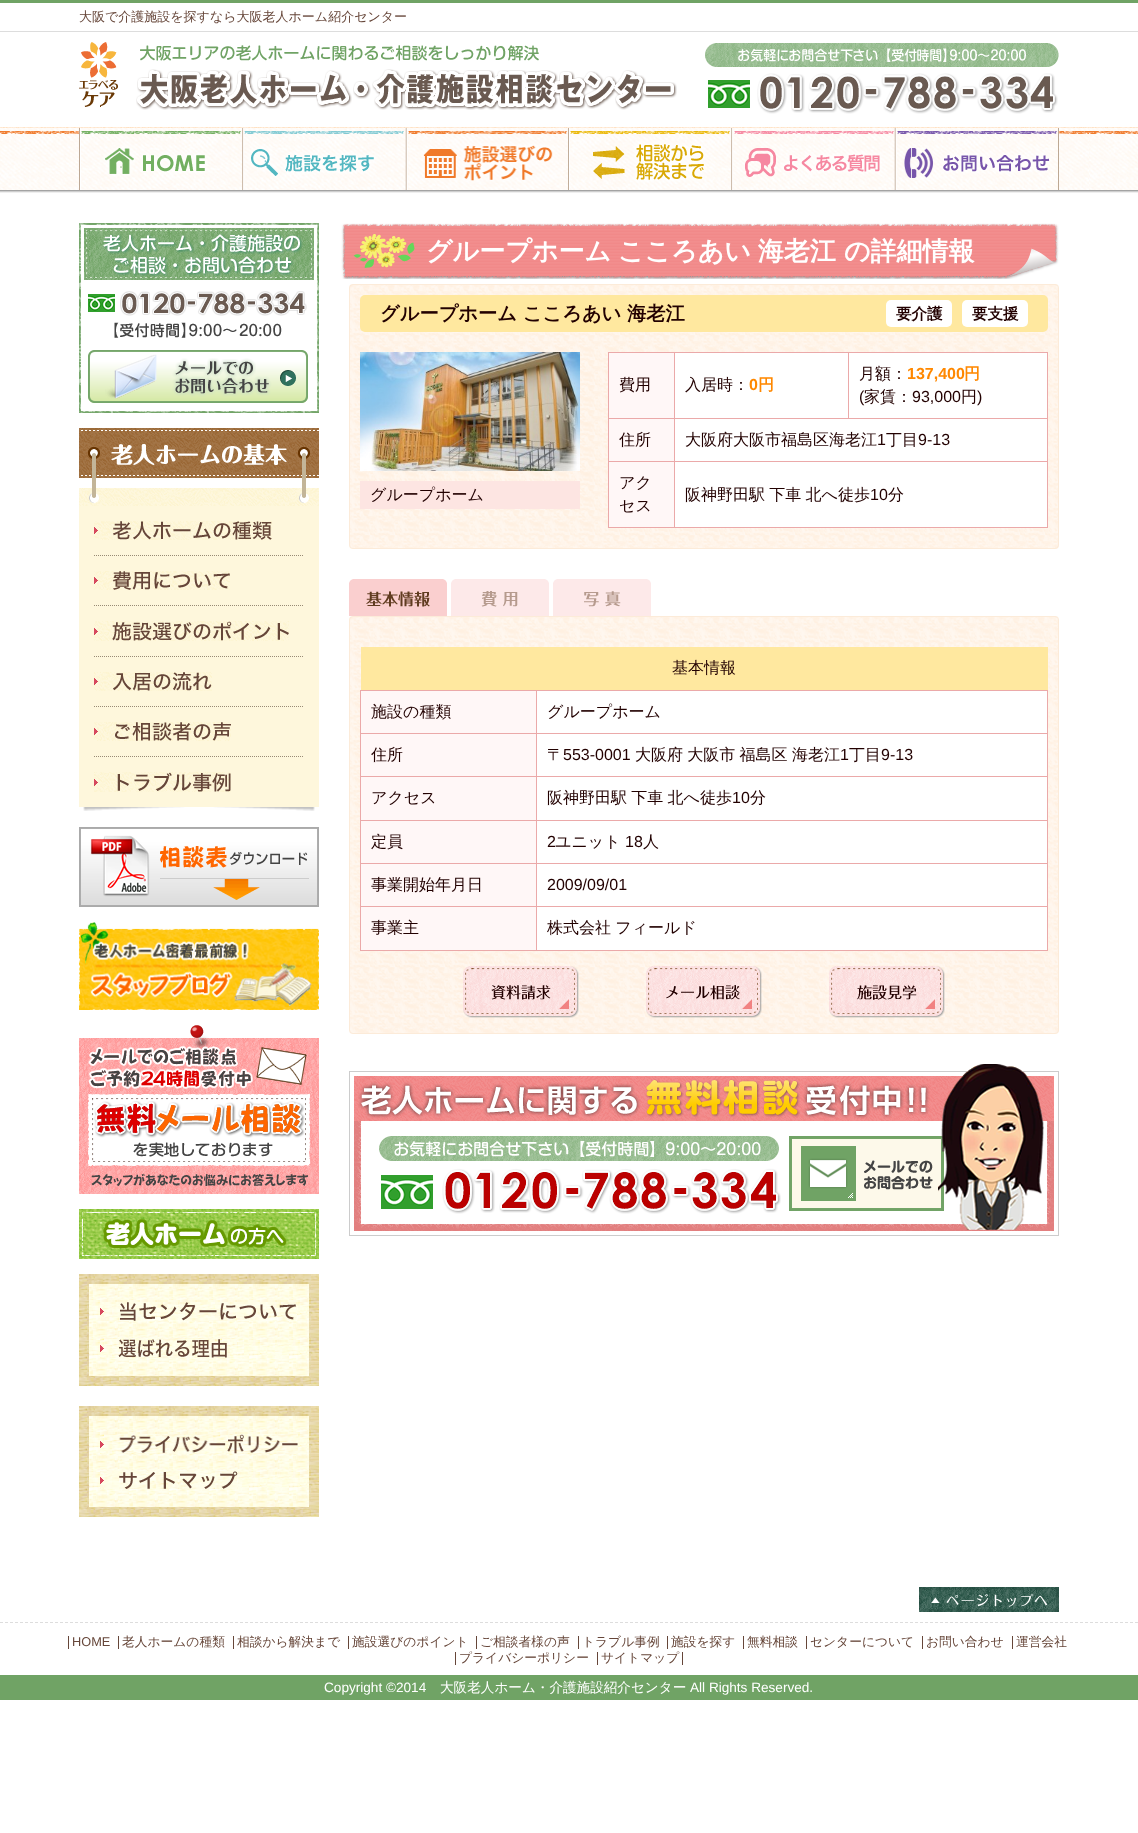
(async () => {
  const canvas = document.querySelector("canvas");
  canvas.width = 1138;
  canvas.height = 1833;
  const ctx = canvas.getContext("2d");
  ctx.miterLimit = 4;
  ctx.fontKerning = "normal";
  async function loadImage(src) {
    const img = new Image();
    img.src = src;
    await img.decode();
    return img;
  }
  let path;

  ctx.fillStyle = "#ffffff";
  ctx.fillRect(0, 0, 1138, 1833);
  ctx.fillStyle = "#70a365";
  ctx.fillRect(0, 0, 1138, 3);
  ctx.fillStyle = "#dddddd";
  ctx.fillRect(0, 31, 1138, 1);
  ctx.drawImage(await loadImage("img/1.png"), 79, 42, 598, 68);
  ctx.drawImage(await loadImage("img/2.png"), 705, 43, 354, 71);
  ctx.drawImage(await loadImage("img/3.png"), 0, 127, 1138, 66);
  ctx.drawImage(await loadImage("img/4.png"), 79, 127, 164, 63);
  ctx.drawImage(await loadImage("img/5.png"), 243, 127, 164, 63);
  ctx.drawImage(await loadImage("img/6.png"), 407, 127, 162, 63);
  ctx.drawImage(await loadImage("img/7.png"), 569, 127, 163, 63);
  ctx.drawImage(await loadImage("img/8.png"), 732, 127, 164, 63);
  ctx.drawImage(await loadImage("img/9.png"), 896, 127, 163, 63);
  ctx.drawImage(await loadImage("img/10.png"), 79, 223, 240, 190);
  ctx.fillStyle = "#fef7dc";
  ctx.fillRect(79, 506, 240, 301);
  ctx.drawImage(await loadImage("img/11.png"), 79, 428, 240, 78);
  path = new Path2D("M94 555.5H304");
  ctx.strokeStyle = "#988b75";
  ctx.setLineDash([1, 1]);
  ctx.stroke(path);
  ctx.drawImage(await loadImage("img/12.png"), 94, 521, 178, 19);
  path = new Path2D("M94 605.5H304");
  ctx.stroke(path);
  ctx.drawImage(await loadImage("img/13.png"), 94, 571, 136, 19);
  path = new Path2D("M94 656.5H304");
  ctx.stroke(path);
  ctx.drawImage(await loadImage("img/14.png"), 94, 621, 195, 20);
  path = new Path2D("M94 706.5H304");
  ctx.stroke(path);
  ctx.drawImage(await loadImage("img/15.png"), 94, 672, 118, 19);
  path = new Path2D("M94 756.5H304");
  ctx.stroke(path);
  ctx.drawImage(await loadImage("img/16.png"), 94, 722, 137, 19);
  ctx.drawImage(await loadImage("img/17.png"), 94, 772, 137, 20);
  ctx.drawImage(await loadImage("img/18.png"), 79, 807, 240, 5);
  ctx.drawImage(await loadImage("img/19.png"), 79, 827, 240, 80);
  ctx.drawImage(await loadImage("img/20.png"), 79, 922, 240, 88);
  ctx.drawImage(await loadImage("img/21.png"), 79, 1025, 240, 169);
  ctx.drawImage(await loadImage("img/22.png"), 79, 1209, 240, 50);
  ctx.drawImage(await loadImage("img/23.png"), 79, 1274, 240, 112);
  ctx.drawImage(await loadImage("img/24.png"), 89, 1284, 220, 92);
  ctx.drawImage(await loadImage("img/25.png"), 100, 1302, 197, 19);
  ctx.drawImage(await loadImage("img/26.png"), 100, 1338, 144, 20);
  ctx.drawImage(await loadImage("img/27.png"), 79, 1406, 240, 111);
  ctx.drawImage(await loadImage("img/28.png"), 89, 1416, 220, 91);
  ctx.drawImage(await loadImage("img/29.png"), 100, 1434, 198, 20);
  ctx.drawImage(await loadImage("img/30.png"), 100, 1471, 138, 18);
  ctx.drawImage(await loadImage("img/31.png"), 341, 223, 718, 56);
  ctx.drawImage(await loadImage("img/32.png"), 349, 284, 710, 265);
  ctx.beginPath();
  ctx.roundRect(349.5, 284.5, 709, 264, 3.5);
  ctx.strokeStyle = "#fcebd9";
  ctx.setLineDash([]);
  ctx.stroke();
  ctx.fillStyle = "#ffe89f";
  ctx.beginPath();
  ctx.roundRect(360, 295, 688, 37, 5);
  ctx.fill();
  ctx.fillStyle = "#ffffff";
  ctx.beginPath();
  ctx.roundRect(886, 300, 66, 27, 5);
  ctx.fill();
  ctx.beginPath();
  ctx.roundRect(962, 300, 66, 27, 5);
  ctx.fill();
  ctx.drawImage(await loadImage("img/33.png"), 360, 352, 220, 119);
  for (const [x, y, w, h, color] of [
    [360, 481, 220, 28, "#fde5e2"],
    [609, 353, 65, 65, "#fff7f7"],
    [848, 352, 200, 1, "#eba9a9"],
    [674, 418, 374, 1, "#eba9a9"],
    [848, 352, 1, 67, "#eba9a9"],
    [674, 352, 175, 1, "#eba9a9"],
    [674, 461, 374, 1, "#eba9a9"],
    [1047, 461, 1, 67, "#eba9a9"],
    [674, 527, 374, 1, "#eba9a9"],
    [674, 461, 1, 67, "#eba9a9"],
    [608, 461, 67, 1, "#eba9a9"],
    [674, 418, 1, 44, "#eba9a9"],
    [608, 418, 67, 1, "#eba9a9"],
    [674, 352, 1, 67, "#eba9a9"],
    [608, 352, 67, 1, "#eba9a9"],
    [608, 527, 67, 1, "#eba9a9"],
    [608, 461, 1, 67, "#eba9a9"],
    [608, 418, 1, 44, "#eba9a9"],
    [608, 352, 1, 67, "#eba9a9"],
    [675, 353, 173, 65, "#ffffff"],
    [849, 353, 198, 65, "#ffffff"],
    [1047, 418, 1, 44, "#eba9a9"],
    [1047, 352, 1, 67, "#eba9a9"],
    [609, 419, 65, 42, "#fff7f7"],
    [675, 419, 372, 42, "#ffffff"],
    [609, 462, 65, 65, "#fff7f7"],
    [675, 462, 372, 65, "#ffffff"],
  ]) {
    ctx.fillStyle = color;
    ctx.fillRect(x, y, w, h);
  }
  ctx.drawImage(await loadImage("img/34.png"), 349, 579, 98, 37);
  ctx.drawImage(await loadImage("img/35.png"), 451, 579, 98, 37);
  ctx.drawImage(await loadImage("img/36.png"), 553, 579, 98, 37);
  ctx.drawImage(await loadImage("img/37.png"), 349, 616, 710, 418);
  ctx.beginPath();
  ctx.roundRect(349.5, 616.5, 709, 417, 3.5);
  ctx.stroke();
  for (const [x, y, w, h, color] of [
    [361, 647, 687, 43, "#ffe89f"],
    [361, 691, 175, 42, "#fff7f7"],
    [536, 690, 512, 1, "#eba9a9"],
    [536, 733, 512, 1, "#eba9a9"],
    [536, 776, 512, 1, "#eba9a9"],
    [536, 820, 512, 1, "#eba9a9"],
    [536, 863, 512, 1, "#eba9a9"],
    [536, 906, 512, 1, "#eba9a9"],
    [1047, 906, 1, 45, "#eba9a9"],
    [536, 950, 512, 1, "#eba9a9"],
    [536, 906, 1, 45, "#eba9a9"],
    [360, 906, 177, 1, "#eba9a9"],
    [536, 863, 1, 44, "#eba9a9"],
    [360, 863, 177, 1, "#eba9a9"],
    [536, 820, 1, 44, "#eba9a9"],
    [360, 820, 177, 1, "#eba9a9"],
    [536, 776, 1, 45, "#eba9a9"],
    [360, 776, 177, 1, "#eba9a9"],
    [536, 733, 1, 44, "#eba9a9"],
    [360, 733, 177, 1, "#eba9a9"],
    [536, 690, 1, 44, "#eba9a9"],
    [360, 690, 177, 1, "#eba9a9"],
    [360, 950, 177, 1, "#eba9a9"],
    [360, 906, 1, 45, "#eba9a9"],
    [360, 863, 1, 44, "#eba9a9"],
    [360, 820, 1, 44, "#eba9a9"],
    [360, 776, 1, 45, "#eba9a9"],
    [360, 733, 1, 44, "#eba9a9"],
    [360, 690, 1, 44, "#eba9a9"],
    [537, 691, 510, 42, "#ffffff"],
    [1047, 863, 1, 44, "#eba9a9"],
    [1047, 820, 1, 44, "#eba9a9"],
    [1047, 776, 1, 45, "#eba9a9"],
    [1047, 733, 1, 44, "#eba9a9"],
    [1047, 690, 1, 44, "#eba9a9"],
    [361, 734, 175, 42, "#fff7f7"],
    [537, 734, 510, 42, "#ffffff"],
    [361, 777, 175, 43, "#fff7f7"],
    [537, 777, 510, 43, "#ffffff"],
    [361, 821, 175, 42, "#fff7f7"],
    [537, 821, 510, 42, "#ffffff"],
    [361, 864, 175, 42, "#fff7f7"],
    [537, 864, 510, 42, "#ffffff"],
    [361, 907, 175, 43, "#fff7f7"],
    [537, 907, 510, 43, "#ffffff"],
  ]) {
    ctx.fillStyle = color;
    ctx.fillRect(x, y, w, h);
  }
  ctx.drawImage(await loadImage("img/38.png"), 463, 966, 116, 52);
  ctx.drawImage(await loadImage("img/39.png"), 646, 966, 116, 52);
  ctx.drawImage(await loadImage("img/40.png"), 829, 966, 116, 52);
  ctx.drawImage(await loadImage("img/41.png"), 349, 1064, 710, 172);
  ctx.drawImage(await loadImage("img/42.png"), 919, 1587, 140, 25);
  path = new Path2D("M0 1622.5H1138");
  ctx.strokeStyle = "#dddddd";
  ctx.setLineDash([3, 2]);
  ctx.stroke(path);
  for (const [x, y, w, h, color] of [
    [68, 1636, 1, 13, "#664639"],
    [118, 1636, 1, 13, "#664639"],
    [233, 1636, 1, 13, "#664639"],
    [348, 1636, 1, 13, "#664639"],
    [476, 1636, 1, 13, "#664639"],
    [578, 1636, 1, 13, "#664639"],
    [667, 1636, 1, 13, "#664639"],
    [743, 1636, 1, 13, "#664639"],
    [806, 1636, 1, 13, "#664639"],
    [922, 1636, 1, 13, "#664639"],
    [1012, 1636, 1, 13, "#664639"],
    [455, 1652, 1, 13, "#664639"],
    [682, 1652, 1, 13, "#664639"],
    [597, 1652, 1, 13, "#664639"],
    [0, 1675, 1138, 25, "#70a365"],
  ]) {
    ctx.fillStyle = color;
    ctx.fillRect(x, y, w, h);
  }
  ctx.font = "500 13px WenQuanYi Zen Hei";
  ctx.fillStyle = "#664639";
  ctx.fillText("大阪で介護施設を探すなら大阪老人ホーム紹介センター", 79, 21);
  ctx.wordSpacing = "-1px";
  ctx.font = "bold 26px WenQuanYi Zen Hei";
  ctx.fillStyle = "#ffffff";
  ctx.fillText("グループホーム こころあい 海老江", 426, 260);
  ctx.wordSpacing = "0px";
  ctx.fillText("の詳細情報", 844, 260);
  ctx.font = "bold 19.25px WenQuanYi Zen Hei";
  ctx.fillStyle = "#220000";
  ctx.fillText("グループホーム こころあい 海老江", 380, 320);
  ctx.font = "bold 15.5px WenQuanYi Zen Hei";
  ctx.fillText("要介護", 896, 319);
  ctx.fillText("要支援", 972, 319);
  ctx.font = "500 16px WenQuanYi Zen Hei";
  for (const [text, x, y] of [
    ["グループホーム", 370, 500],
    ["費用", 619, 390],
    ["入居時：", 685, 390],
  ]) {
    ctx.fillText(text, x, y);
  }
  ctx.font = "bold 16px Liberation Sans";
  ctx.fillStyle = "#ff8800";
  ctx.fillText("0", 749, 390);
  ctx.font = "bold 16px WenQuanYi Zen Hei";
  ctx.fillText("円", 758, 390);
  ctx.font = "500 16px WenQuanYi Zen Hei";
  ctx.fillStyle = "#220000";
  ctx.fillText("月額：", 859, 379);
  ctx.font = "bold 16px Liberation Sans";
  ctx.fillStyle = "#ff8800";
  ctx.fillText("137,400", 907, 379);
  ctx.font = "bold 16px WenQuanYi Zen Hei";
  ctx.fillText("円", 964, 379);
  ctx.font = "16px Liberation Sans";
  ctx.fillStyle = "#220000";
  ctx.fillText("(", 859, 402);
  ctx.font = "500 16px WenQuanYi Zen Hei";
  ctx.fillText("家賃：", 864, 402);
  ctx.font = "16px Liberation Sans";
  ctx.fillText("93,000", 912, 402);
  ctx.font = "500 16px WenQuanYi Zen Hei";
  ctx.fillText("円", 961, 402);
  ctx.font = "16px Liberation Sans";
  ctx.fillText(")", 977, 402);
  ctx.font = "500 16px WenQuanYi Zen Hei";
  ctx.fillText("住所", 619, 445);
  ctx.fillText("大阪府大阪市福島区海老江", 685, 445);
  ctx.font = "16px Liberation Sans";
  ctx.fillText("1", 877, 445);
  ctx.font = "500 16px WenQuanYi Zen Hei";
  ctx.fillText("丁目", 886, 445);
  ctx.font = "16px Liberation Sans";
  ctx.fillText("9-13", 918, 445);
  ctx.font = "500 16px WenQuanYi Zen Hei";
  ctx.fillText("アク", 619, 488);
  ctx.fillText("セス", 619, 511);
  ctx.wordSpacing = "-0.5px";
  ctx.fillText("阪神野田駅 下車 北へ徒歩", 685, 500);
  ctx.wordSpacing = "0px";
  ctx.font = "16px Liberation Sans";
  ctx.fillText("10", 870, 500);
  ctx.font = "500 16px WenQuanYi Zen Hei";
  for (const [text, x, y] of [
    ["分", 888, 500],
    ["基本情報", 672, 673],
    ["施設の種類", 371, 717],
    ["グループホーム", 547, 717],
    ["住所", 371, 760],
    ["〒", 547, 760],
  ]) {
    ctx.fillText(text, x, y);
  }
  ctx.font = "16px Liberation Sans";
  ctx.fillText("553-0001", 563, 760);
  ctx.wordSpacing = "-0.5px";
  ctx.font = "500 16px WenQuanYi Zen Hei";
  ctx.fillText("大阪府 大阪市 福島区 海老江", 635, 760);
  ctx.wordSpacing = "0px";
  ctx.font = "16px Liberation Sans";
  ctx.fillText("1", 840, 760);
  ctx.font = "500 16px WenQuanYi Zen Hei";
  ctx.fillText("丁目", 849, 760);
  ctx.font = "16px Liberation Sans";
  ctx.fillText("9-13", 881, 760);
  ctx.font = "500 16px WenQuanYi Zen Hei";
  ctx.fillText("アクセス", 371, 803);
  ctx.wordSpacing = "-0.5px";
  ctx.fillText("阪神野田駅 下車 北へ徒歩", 547, 803);
  ctx.wordSpacing = "0px";
  ctx.font = "16px Liberation Sans";
  ctx.fillText("10", 732, 803);
  ctx.font = "500 16px WenQuanYi Zen Hei";
  ctx.fillText("分", 750, 803);
  ctx.fillText("定員", 371, 847);
  ctx.font = "16px Liberation Sans";
  ctx.fillText("2", 547, 847);
  ctx.font = "500 16px WenQuanYi Zen Hei";
  ctx.fillText("ユニット", 555, 847);
  ctx.font = "16px Liberation Sans";
  ctx.fillText("18", 625, 847);
  ctx.font = "500 16px WenQuanYi Zen Hei";
  ctx.fillText("人", 643, 847);
  ctx.fillText("事業開始年月日", 371, 890);
  ctx.font = "16px Liberation Sans";
  ctx.fillText("2009/09/01", 547, 890);
  ctx.font = "500 16px WenQuanYi Zen Hei";
  ctx.fillText("事業主", 371, 933);
  ctx.wordSpacing = "-0.5px";
  ctx.fillText("株式会社 フィールド", 547, 933);
  ctx.wordSpacing = "0px";
  ctx.font = "12.75px Liberation Sans";
  ctx.fillStyle = "#664639";
  ctx.fillText("HOME", 72, 1646);
  ctx.font = "500 12.75px WenQuanYi Zen Hei";
  for (const [text, x, y] of [
    ["老人ホームの種類", 122, 1646],
    ["相談から解決まで", 237, 1646],
    ["施設選びのポイント", 352, 1646],
    ["ご相談者様の声", 480, 1646],
    ["トラブル事例", 582, 1646],
    ["施設を探す", 671, 1646],
    ["無料相談", 747, 1646],
    ["センターについて", 810, 1646],
    ["お問い合わせ", 926, 1646],
    ["運営会社", 1016, 1646],
    ["プライバシーポリシー", 459, 1662],
    ["サイトマップ", 601, 1662],
  ]) {
    ctx.fillText(text, x, y);
  }
  ctx.font = "13.6px Liberation Sans";
  ctx.fillStyle = "#ffffff";
  ctx.fillText("Copyright ©2014", 324, 1692);
  ctx.font = "500 13.6px WenQuanYi Zen Hei";
  ctx.fillText("大阪老人ホーム・介護施設紹介センター", 440, 1692);
  ctx.font = "13.6px Liberation Sans";
  ctx.fillText("All Rights Reserved.", 690, 1692);
})();
